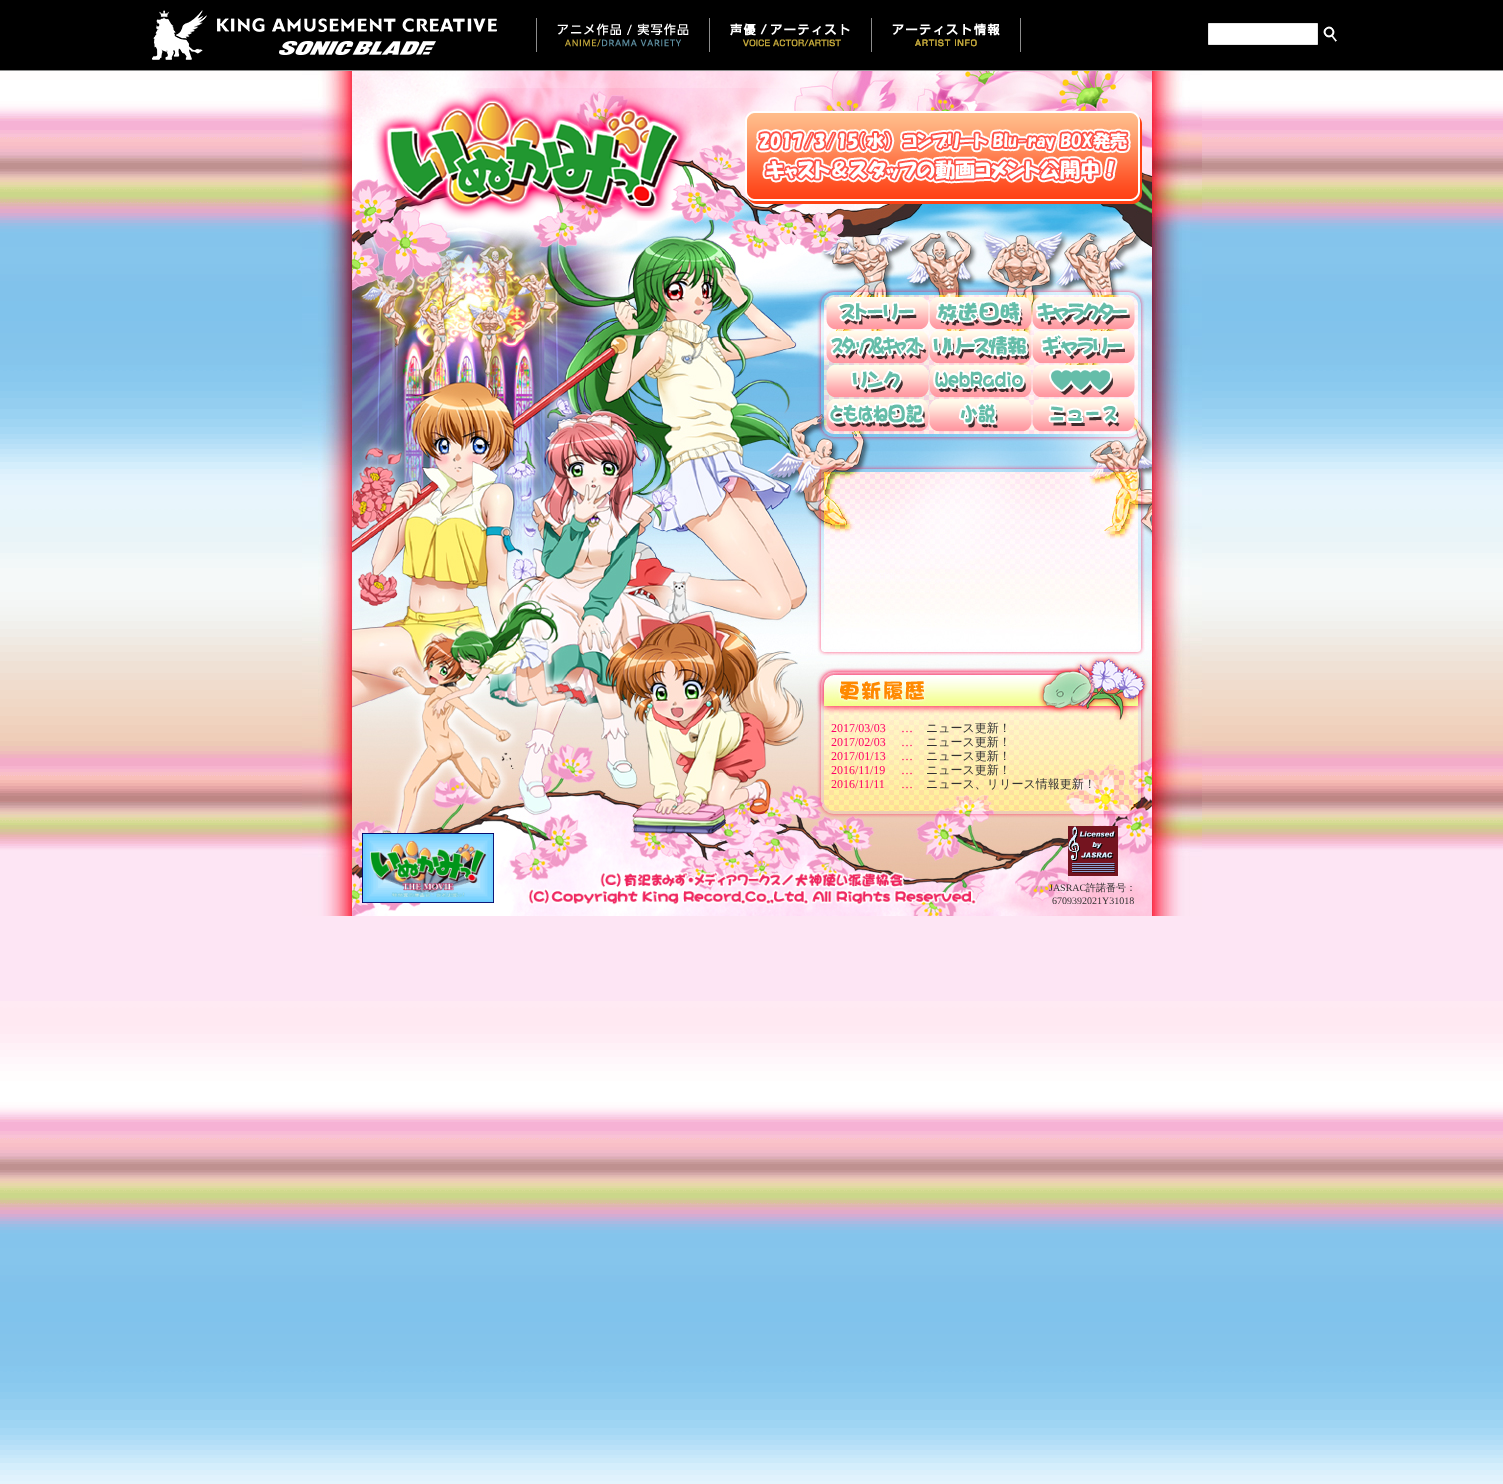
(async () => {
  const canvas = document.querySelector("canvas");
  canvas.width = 1503;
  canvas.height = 1484;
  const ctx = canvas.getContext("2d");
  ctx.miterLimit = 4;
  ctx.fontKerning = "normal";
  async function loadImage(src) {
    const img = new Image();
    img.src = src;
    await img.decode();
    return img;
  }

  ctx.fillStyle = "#ffffff";
  ctx.fillRect(0, 0, 1503, 1484);
  ctx.drawImage(await loadImage("img/1.png"), 0, 71, 1503, 1413);
  ctx.fillStyle = "#000000";
  ctx.fillRect(0, 0, 1503, 70);
  ctx.fillStyle = "#8c8c8c";
  ctx.fillRect(0, 70, 1503, 1);
  ctx.drawImage(await loadImage("img/2.png"), 152, 10, 345, 50);
  ctx.fillRect(1020, 18, 1, 34);
  ctx.fillRect(536, 18, 1, 34);
  ctx.drawImage(await loadImage("img/3.png"), 557, 23, 132, 24);
  ctx.fillRect(709, 18, 1, 34);
  ctx.drawImage(await loadImage("img/4.png"), 730, 23, 120, 24);
  ctx.fillRect(871, 18, 1, 34);
  ctx.drawImage(await loadImage("img/5.png"), 892, 23, 108, 24);
  ctx.fillStyle = "#ffffff";
  ctx.beginPath();
  ctx.rect(1208.5, 23.5, 109, 21);
  ctx.fill();
  ctx.strokeStyle = "#e6e6e6";
  ctx.stroke();
  ctx.drawImage(await loadImage("img/6.png"), 1323, 26, 14, 16);
  ctx.drawImage(await loadImage("img/7.png"), 302, 71, 900, 845);
  ctx.drawImage(await loadImage("img/8.png"), 352, 71, 800, 845);
  ctx.drawImage(await loadImage("img/9.png"), 373, 88, 318, 133);
  ctx.drawImage(await loadImage("img/10.png"), 745, 111, 397, 93);
  ctx.drawImage(await loadImage("img/11.png"), 826, 296, 103, 34);
  ctx.drawImage(await loadImage("img/12.png"), 929, 296, 103, 34);
  ctx.drawImage(await loadImage("img/13.png"), 1032, 296, 103, 34);
  ctx.drawImage(await loadImage("img/14.png"), 826, 330, 103, 34);
  ctx.drawImage(await loadImage("img/15.png"), 929, 330, 103, 34);
  ctx.drawImage(await loadImage("img/16.png"), 1032, 330, 103, 34);
  ctx.drawImage(await loadImage("img/17.png"), 826, 365, 103, 33);
  ctx.drawImage(await loadImage("img/18.png"), 929, 365, 103, 33);
  ctx.drawImage(await loadImage("img/19.png"), 1032, 364, 103, 34);
  ctx.drawImage(await loadImage("img/20.png"), 826, 399, 103, 33);
  ctx.drawImage(await loadImage("img/21.png"), 929, 399, 103, 33);
  ctx.drawImage(await loadImage("img/22.png"), 1032, 399, 103, 33);
  ctx.drawImage(await loadImage("img/23.png"), 362, 833, 132, 70);
  ctx.drawImage(await loadImage("img/24.png"), 528, 871, 449, 35);
  ctx.drawImage(await loadImage("img/25.png"), 1068, 826, 50, 50);
  ctx.font = "12px Liberation Serif";
  ctx.fillStyle = "#ff0066";
  ctx.fillText("2017/03/03", 831, 732);
  ctx.fillText("…", 901, 732);
  ctx.font = "500 12px WenQuanYi Zen Hei";
  ctx.fillStyle = "#333333";
  ctx.fillText("ニュース更新！", 926, 732);
  ctx.font = "12px Liberation Serif";
  ctx.fillStyle = "#ff0066";
  ctx.fillText("2017/02/03", 831, 746);
  ctx.fillText("…", 901, 746);
  ctx.font = "500 12px WenQuanYi Zen Hei";
  ctx.fillStyle = "#333333";
  ctx.fillText("ニュース更新！", 926, 746);
  ctx.font = "12px Liberation Serif";
  ctx.fillStyle = "#ff0066";
  ctx.fillText("2017/01/13", 831, 760);
  ctx.fillText("…", 901, 760);
  ctx.font = "500 12px WenQuanYi Zen Hei";
  ctx.fillStyle = "#333333";
  ctx.fillText("ニュース更新！", 926, 760);
  ctx.font = "12px Liberation Serif";
  ctx.fillStyle = "#ff0066";
  ctx.fillText("2016/11/19", 831, 774);
  ctx.fillText("…", 901, 774);
  ctx.font = "500 12px WenQuanYi Zen Hei";
  ctx.fillStyle = "#333333";
  ctx.fillText("ニュース更新！", 926, 774);
  ctx.font = "12px Liberation Serif";
  ctx.fillStyle = "#ff0066";
  ctx.fillText("2016/11/11", 831, 788);
  ctx.fillText("…", 901, 788);
  ctx.font = "500 12px WenQuanYi Zen Hei";
  ctx.fillStyle = "#333333";
  ctx.fillText("ニュース、リリース情報更新！", 926, 788);
  ctx.font = "10px Liberation Serif";
  ctx.fillText("JASRAC", 1049, 891);
  ctx.font = "500 10px WenQuanYi Zen Hei";
  ctx.fillText("許諾番号：", 1086, 891);
  ctx.font = "10px Liberation Serif";
  ctx.fillText("6709392021Y31018", 1052, 904);
})();
